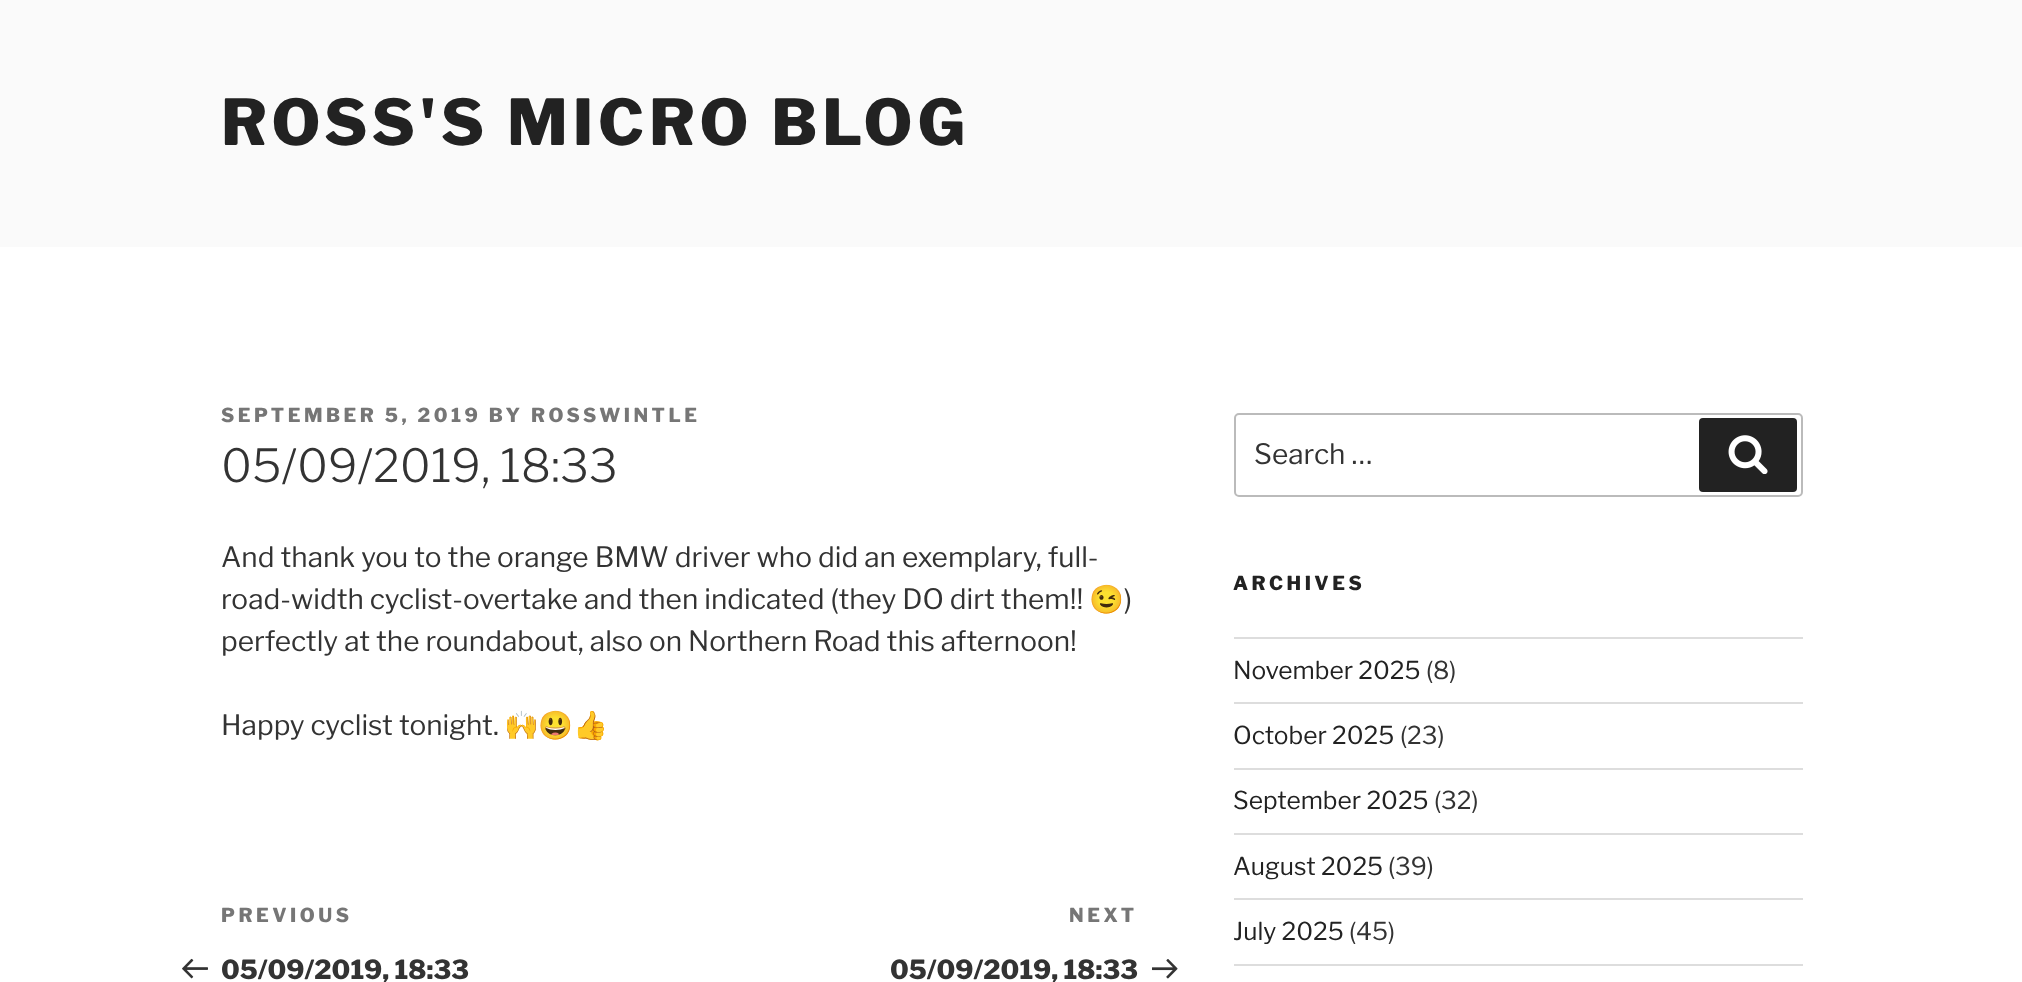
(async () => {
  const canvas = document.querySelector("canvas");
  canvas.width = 2022;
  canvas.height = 982;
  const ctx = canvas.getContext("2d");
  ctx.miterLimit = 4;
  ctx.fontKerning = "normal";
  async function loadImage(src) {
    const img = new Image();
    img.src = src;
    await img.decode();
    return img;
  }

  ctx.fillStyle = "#ffffff";
  ctx.fillRect(0, 0, 2022, 982);
  ctx.fillStyle = "#fafafa";
  ctx.fillRect(0, 0, 2022, 247);
  ctx.drawImage(await loadImage("img/1.png"), 182, 958, 26, 21);
  ctx.drawImage(await loadImage("img/2.png"), 1152, 959, 26, 20);
  ctx.beginPath();
  ctx.roundRect(1235, 414, 567, 82, 4);
  ctx.strokeStyle = "#bbbbbb";
  ctx.lineWidth = 2;
  ctx.stroke();
  ctx.fillStyle = "#222222";
  ctx.beginPath();
  ctx.roundRect(1699, 418, 98, 74, 4);
  ctx.fill();
  ctx.drawImage(await loadImage("img/3.png"), 1728, 435, 40, 39);
  for (const [x, y, w, h, color] of [
    [1234, 637, 569, 2, "#dddddd"],
    [1234, 702, 569, 2, "#dddddd"],
    [1234, 768, 569, 2, "#dddddd"],
    [1234, 833, 569, 2, "#dddddd"],
    [1234, 898, 569, 2, "#dddddd"],
    [1234, 964, 569, 2, "#dddddd"],
  ]) {
    ctx.fillStyle = color;
    ctx.fillRect(x, y, w, h);
  }
  ctx.letterSpacing = "5px";
  ctx.font = "100 63px Libre Franklin";
  ctx.fillStyle = "#222222";
  ctx.fillText("ROSS'S MICRO BLOG", 221, 145);
  ctx.letterSpacing = "3.5px";
  ctx.font = "100 19.25px Libre Franklin";
  ctx.fillStyle = "#767676";
  ctx.fillText("SEPTEMBER 5, 2019 BY ROSSWINTLE", 221, 422);
  ctx.letterSpacing = "0px";
  ctx.font = "100 45.5px 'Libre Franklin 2'";
  ctx.fillStyle = "#333333";
  ctx.fillText("05/09/2019, 18:33", 221, 482);
  ctx.font = "100 28px 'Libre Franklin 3'";
  ctx.fillText("And thank you to the orange BMW driver who did an exemplary, full-", 221, 567);
  ctx.fillText("road-width cyclist-overtake and then indicated (they DO dirt them!!", 221, 609);
  ctx.font = "28px Noto Color Emoji";
  ctx.fillText("😉", 1089, 609);
  ctx.font = "100 28px 'Libre Franklin 3'";
  for (const [text, x, y] of [
    [")", 1124, 609],
    ["perfectly at the roundabout, also on Northern Road this afternoon!", 221, 651],
    ["Happy cyclist tonight.", 221, 735],
  ]) {
    ctx.fillText(text, x, y);
  }
  ctx.font = "28px Noto Color Emoji";
  ctx.fillText("🙌😃👍", 504, 735);
  ctx.letterSpacing = "3.5px";
  ctx.font = "100 19.25px Libre Franklin";
  ctx.fillStyle = "#767676";
  ctx.fillText("PREVIOUS", 221, 922);
  ctx.letterSpacing = "0px";
  ctx.font = "100 26.25px Libre Franklin";
  ctx.fillStyle = "#333333";
  ctx.fillText("05/09/2019, 18:33", 221, 979);
  ctx.letterSpacing = "3.5px";
  ctx.font = "100 19.25px Libre Franklin";
  ctx.fillStyle = "#767676";
  ctx.fillText("NEXT", 1069, 922);
  ctx.letterSpacing = "0px";
  ctx.font = "100 26.25px Libre Franklin";
  ctx.fillStyle = "#333333";
  ctx.fillText("05/09/2019, 18:33", 890, 979);
  ctx.font = "100 28px 'Libre Franklin 3'";
  ctx.fillText("Search …", 1254, 464);
  ctx.letterSpacing = "3.5px";
  ctx.font = "100 19.25px Libre Franklin";
  ctx.fillStyle = "#222222";
  ctx.fillText("ARCHIVES", 1233, 590);
  ctx.letterSpacing = "0px";
  ctx.font = "100 24.5px 'Libre Franklin 3'";
  ctx.fillText("November 2025", 1233, 679);
  ctx.fillStyle = "#333333";
  ctx.fillText("(8)", 1426, 679);
  ctx.fillStyle = "#222222";
  ctx.fillText("October 2025", 1233, 744);
  ctx.fillStyle = "#333333";
  ctx.fillText("(23)", 1400, 744);
  ctx.fillStyle = "#222222";
  ctx.fillText("September 2025", 1233, 809);
  ctx.fillStyle = "#333333";
  ctx.fillText("(32)", 1434, 809);
  ctx.fillStyle = "#222222";
  ctx.fillText("August 2025", 1233, 875);
  ctx.fillStyle = "#333333";
  ctx.fillText("(39)", 1388, 875);
  ctx.fillStyle = "#222222";
  ctx.fillText("July 2025", 1233, 940);
  ctx.fillStyle = "#333333";
  ctx.fillText("(45)", 1349, 940);
})();
